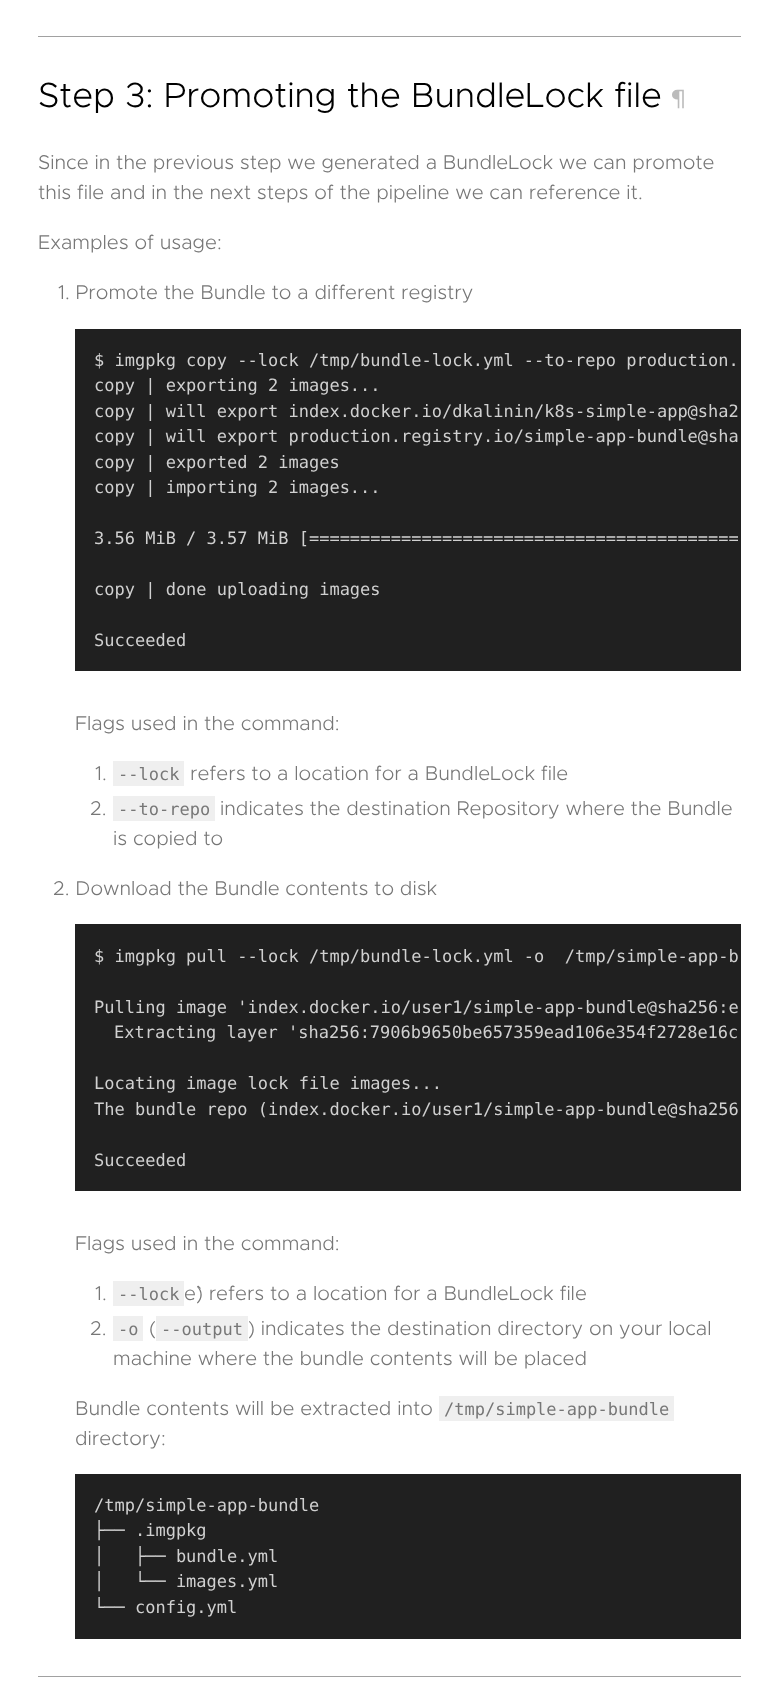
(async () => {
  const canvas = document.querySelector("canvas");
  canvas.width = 778;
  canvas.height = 1686;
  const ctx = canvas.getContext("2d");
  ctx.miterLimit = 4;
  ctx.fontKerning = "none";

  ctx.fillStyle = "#ffffff";
  ctx.fillRect(0, 0, 778, 1686);
  for (const [x, y, w, h, color] of [
    [38, 36, 703, 1, "#a1a1a1"],
    [75, 329, 666, 342, "#202020"],
    [113, 761, 71, 25, "#efefef"],
    [113, 796, 102, 25, "#efefef"],
    [75, 924, 666, 267, "#202020"],
    [113, 1281, 71, 25, "#efefef"],
    [113, 1316, 30, 25, "#efefef"],
    [156, 1316, 92, 25, "#efefef"],
    [439, 1396, 235, 25, "#efefef"],
    [75, 1474, 666, 165, "#202020"],
    [38, 1676, 703, 1, "#a1a1a1"],
  ]) {
    ctx.fillStyle = color;
    ctx.fillRect(x, y, w, h);
  }
  ctx.font = "300 35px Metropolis";
  ctx.fillStyle = "#000000";
  ctx.fillText("Step 3: Promoting the BundleLock file", 38, 107);
  ctx.font = "25px Metropolis";
  ctx.fillStyle = "#bbbbbb";
  ctx.fillText("¶", 671, 107);
  ctx.font = "300 20px Metropolis";
  ctx.fillStyle = "#777777";
  for (const [text, x, y] of [
    ["Since in the previous step we generated a BundleLock we can promote", 38, 169],
    ["this file and in the next steps of the pipeline we can reference it.", 38, 199],
    ["Examples of usage:", 38, 249],
    ["1. Promote the Bundle to a different registry", 58, 299],
  ]) {
    ctx.fillText(text, x, y);
  }
  ctx.font = "17px DejaVu Sans Mono";
  ctx.fillStyle = "#d0d0d0";
  for (const [text, x, y] of [
    ["$ imgpkg copy --lock /tmp/bundle-lock.yml --to-repo production.", 94, 366],
    ["copy | exporting 2 images...", 94, 391],
    ["copy | will export index.docker.io/dkalinin/k8s-simple-app@sha2", 94, 417],
    ["copy | will export production.registry.io/simple-app-bundle@sha", 94, 442],
    ["copy | exported 2 images", 94, 468],
    ["copy | importing 2 images...", 94, 493],
    ["3.56 MiB / 3.57 MiB [==========================================", 94, 544],
    ["copy | done uploading images", 94, 595],
    ["Succeeded", 94, 646],
  ]) {
    ctx.fillText(text, x, y);
  }
  ctx.font = "300 20px Metropolis";
  ctx.fillStyle = "#777777";
  ctx.fillText("Flags used in the command:", 75, 730);
  ctx.fillText("1.", 95, 780);
  ctx.font = "17px DejaVu Sans Mono";
  ctx.fillText("--lock", 118, 780);
  ctx.font = "300 20px Metropolis";
  ctx.fillText("refers to a location for a BundleLock file", 190, 780);
  ctx.fillText("2.", 90, 815);
  ctx.font = "17px DejaVu Sans Mono";
  ctx.fillText("--to-repo", 118, 815);
  ctx.font = "300 20px Metropolis";
  for (const [text, x, y] of [
    ["indicates the destination Repository where the Bundle", 220, 815],
    ["is copied to", 113, 845],
    ["2. Download the Bundle contents to disk", 53, 895],
  ]) {
    ctx.fillText(text, x, y);
  }
  ctx.font = "17px DejaVu Sans Mono";
  ctx.fillStyle = "#d0d0d0";
  for (const [text, x, y] of [
    ["$ imgpkg pull --lock /tmp/bundle-lock.yml -o  /tmp/simple-app-b", 94, 962],
    ["Pulling image 'index.docker.io/user1/simple-app-bundle@sha256:e", 94, 1013],
    ["Extracting layer 'sha256:7906b9650be657359ead106e354f2728e16c", 114, 1038],
    ["Locating image lock file images...", 94, 1089],
    ["The bundle repo (index.docker.io/user1/simple-app-bundle@sha256", 94, 1115],
    ["Succeeded", 94, 1166],
  ]) {
    ctx.fillText(text, x, y);
  }
  ctx.font = "300 20px Metropolis";
  ctx.fillStyle = "#777777";
  ctx.fillText("Flags used in the command:", 75, 1250);
  ctx.fillText("1.", 95, 1300);
  ctx.font = "17px DejaVu Sans Mono";
  ctx.fillText("--lock", 118, 1300);
  ctx.font = "300 20px Metropolis";
  ctx.fillText("e`) refers to a location for a BundleLock file", 184, 1300);
  ctx.fillText("2.", 90, 1335);
  ctx.font = "17px DejaVu Sans Mono";
  ctx.fillText("-o", 118, 1335);
  ctx.font = "300 20px Metropolis";
  ctx.fillText("(", 149, 1335);
  ctx.font = "17px DejaVu Sans Mono";
  ctx.fillText("--output", 161, 1335);
  ctx.font = "300 20px Metropolis";
  for (const [text, x, y] of [
    [") indicates the destination directory on your local", 248, 1335],
    ["machine where the bundle contents will be placed", 113, 1365],
    ["Bundle contents will be extracted into", 75, 1415],
  ]) {
    ctx.fillText(text, x, y);
  }
  ctx.font = "17px DejaVu Sans Mono";
  ctx.fillText("/tmp/simple-app-bundle", 444, 1415);
  ctx.font = "300 20px Metropolis";
  ctx.fillText("directory:", 75, 1445);
  ctx.font = "17px DejaVu Sans Mono";
  ctx.fillStyle = "#d0d0d0";
  for (const [text, x, y] of [
    ["/tmp/simple-app-bundle", 94, 1511],
    ["├── .imgpkg", 94, 1536],
    ["│   ├── bundle.yml", 94, 1562],
    ["│   └── images.yml", 94, 1587],
    ["└── config.yml", 94, 1613],
  ]) {
    ctx.fillText(text, x, y);
  }
})();
